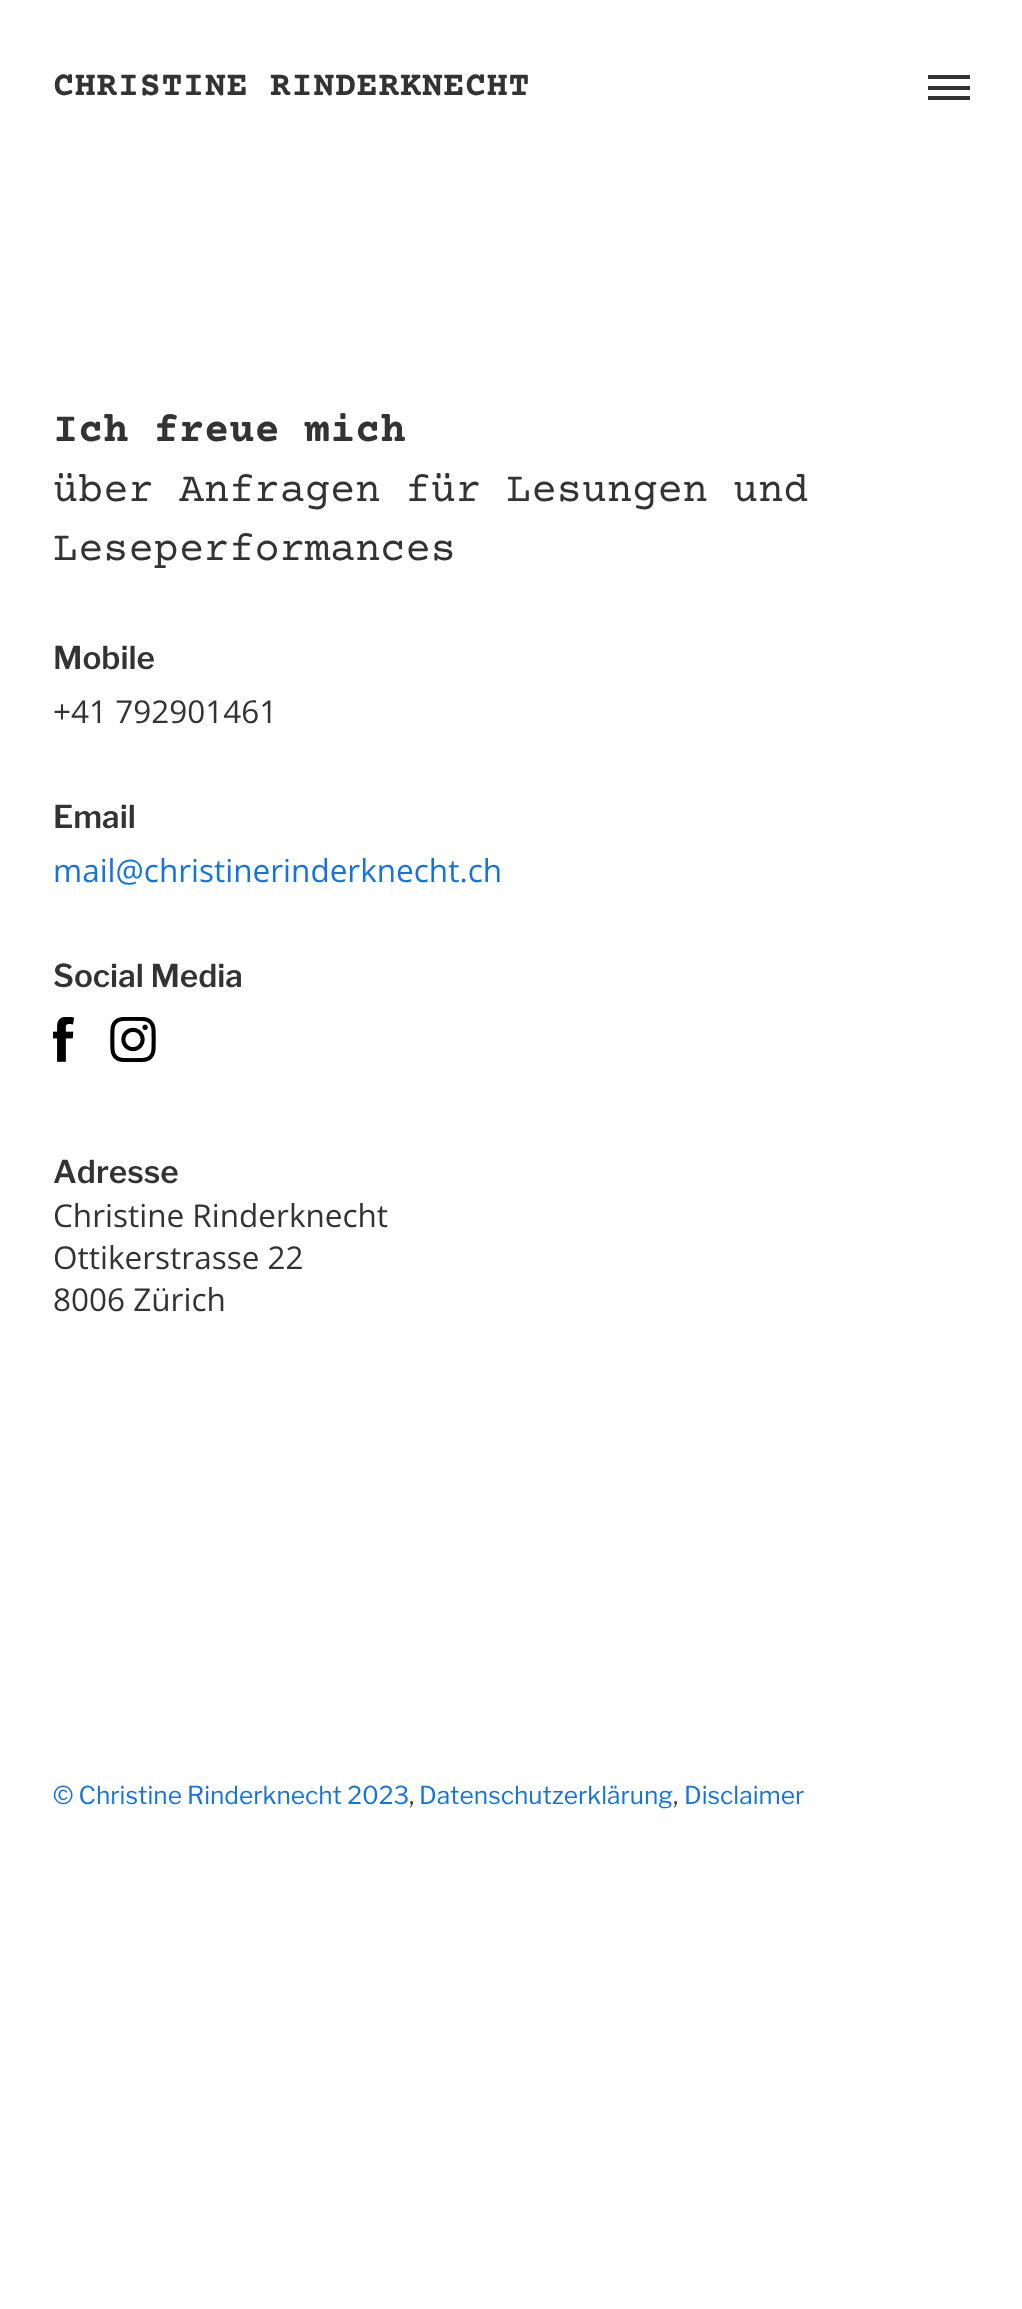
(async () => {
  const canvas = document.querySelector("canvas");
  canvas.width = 1022;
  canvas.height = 2309;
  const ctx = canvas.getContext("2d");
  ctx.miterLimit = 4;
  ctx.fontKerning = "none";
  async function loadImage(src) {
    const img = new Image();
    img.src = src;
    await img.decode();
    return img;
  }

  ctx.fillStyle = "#ffffff";
  ctx.fillRect(0, 0, 1022, 2309);
  for (const [x, y, w, h, color] of [
    [928, 86, 42, 4, "#333333"],
    [928, 75, 42, 4, "#333333"],
    [928, 96, 42, 4, "#333333"],
  ]) {
    ctx.fillStyle = color;
    ctx.fillRect(x, y, w, h);
  }
  ctx.drawImage(await loadImage("img/1.png"), 53, 1017, 22, 45);
  ctx.drawImage(await loadImage("img/2.png"), 110, 1017, 46, 45);
  ctx.letterSpacing = "0.7px";
  ctx.font = "bold 35px Courier Prime";
  ctx.fillText("CHRISTINE RINDERKNECHT", 53, 95);
  ctx.letterSpacing = "0px";
  ctx.font = "bold 42px Courier Prime";
  ctx.fillText("Ich freue mich", 53, 441);
  ctx.font = "42px Courier Prime";
  ctx.fillText("über Anfragen für Lesungen und", 53, 501);
  ctx.fillText("Leseperformances", 53, 560);
  ctx.font = "600 31.5px Libre Franklin";
  ctx.fillText("Mobile", 53, 669);
  ctx.font = "31.5px Open Sans";
  ctx.fillText("+41 792901461", 53, 723);
  ctx.font = "600 31.5px Libre Franklin";
  ctx.fillText("Email", 53, 828);
  ctx.font = "31.5px Open Sans";
  ctx.fillStyle = "#1573dd";
  ctx.fillText("mail@christinerinderknecht.ch", 53, 882);
  ctx.font = "600 31.5px Libre Franklin";
  ctx.fillStyle = "#333333";
  ctx.fillText("Social Media", 53, 987);
  ctx.fillText("Adresse", 53, 1183);
  ctx.font = "31.5px Open Sans";
  for (const [text, x, y] of [
    ["Christine Rinderknecht", 53, 1227],
    ["Ottikerstrasse 22", 53, 1269],
    ["8006 Zürich", 53, 1311],
  ]) {
    ctx.fillText(text, x, y);
  }
  ctx.font = "24.5px Libre Franklin";
  ctx.fillStyle = "#1573dd";
  ctx.fillText("© Christine Rinderknecht 2023", 53, 1804);
  ctx.fillStyle = "#333333";
  ctx.fillText(",", 409, 1804);
  ctx.fillStyle = "#1573dd";
  ctx.fillText("Datenschutzerklärung", 419, 1804);
  ctx.fillStyle = "#333333";
  ctx.fillText(",", 673, 1804);
  ctx.fillStyle = "#1573dd";
  ctx.fillText("Disclaimer", 684, 1804);
})();
